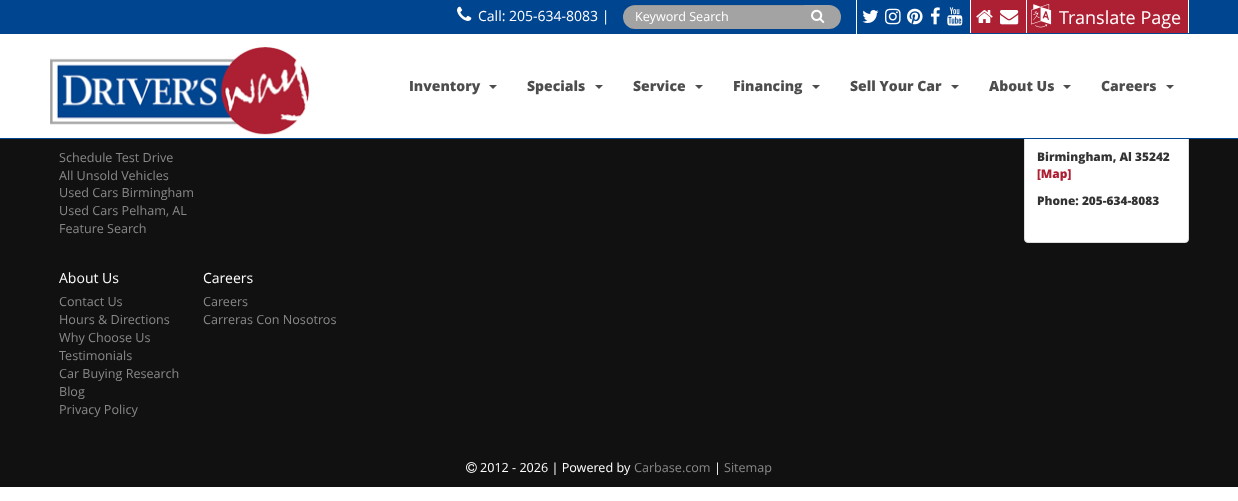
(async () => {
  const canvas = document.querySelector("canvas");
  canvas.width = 1238;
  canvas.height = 501;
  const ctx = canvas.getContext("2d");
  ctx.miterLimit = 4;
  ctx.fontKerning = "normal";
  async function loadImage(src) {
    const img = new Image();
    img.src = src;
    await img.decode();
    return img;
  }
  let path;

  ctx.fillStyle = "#ffffff";
  ctx.fillRect(0, 0, 1238, 501);
  ctx.fillStyle = "#111111";
  ctx.fillRect(0, 139, 1238, 348);
  ctx.fillStyle = "#ffffff";
  ctx.beginPath();
  ctx.roundRect(1024.5, -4.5, 164, 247, 3.5);
  ctx.fill();
  ctx.strokeStyle = "#dddddd";
  ctx.stroke();
  for (const [x, y, w, h, color] of [
    [1024, 34, 165, 104, "#ffffff"],
    [0, 138, 1238, 1, "#004590"],
    [0, 0, 1238, 34, "#004590"],
    [856, 0, 1, 34, "#ffffff"],
  ]) {
    ctx.fillStyle = color;
    ctx.fillRect(x, y, w, h);
  }
  ctx.drawImage(await loadImage("img/1.png"), 457, 6, 15, 15);
  ctx.fillStyle = "#a3a3a3";
  ctx.beginPath();
  ctx.roundRect(623, 5, 218, 24, 12);
  ctx.fill();
  ctx.fillStyle = "rgba(0, 0, 0, 0.07)";
  path = new Path2D("M627 6H804V5H625C624 6 623 8 623 9C623 7 625 6 627 6Z");
  ctx.fill(path);
  ctx.drawImage(await loadImage("img/2.png"), 811, 9, 14, 14);
  ctx.fillStyle = "#ffffff";
  ctx.fillRect(970, 0, 1, 33);
  ctx.drawImage(await loadImage("img/3.png"), 862, 10, 17, 13);
  ctx.drawImage(await loadImage("img/4.png"), 885, 8, 16, 17);
  ctx.drawImage(await loadImage("img/5.png"), 907, 8, 16, 17);
  ctx.drawImage(await loadImage("img/6.png"), 930, 7, 10, 18);
  ctx.drawImage(await loadImage("img/7.png"), 947, 7, 16, 19);
  ctx.fillStyle = "#ad1f33";
  ctx.fillRect(971, 0, 55, 33);
  ctx.fillStyle = "#ffffff";
  ctx.fillRect(1026, 0, 1, 33);
  ctx.drawImage(await loadImage("img/8.png"), 976, 10, 17, 13);
  ctx.drawImage(await loadImage("img/9.png"), 1000, 10, 19, 15);
  ctx.fillStyle = "#ad1f33";
  ctx.fillRect(1027, 0, 161, 33);
  ctx.fillStyle = "#ffffff";
  ctx.fillRect(1188, 0, 1, 33);
  ctx.drawImage(await loadImage("img/10.png"), 1031, 4, 21, 24);
  ctx.drawImage(await loadImage("img/11.png"), 50, 47, 260, 88);
  ctx.fillStyle = "#4d4d4d";
  path = new Path2D("M489 85H497L493 89Z");
  ctx.fill(path);
  path = new Path2D("M595 85H603L599 89Z");
  ctx.fill(path);
  path = new Path2D("M695 85H703L699 89Z");
  ctx.fill(path);
  path = new Path2D("M812 85H820L816 89Z");
  ctx.fill(path);
  path = new Path2D("M951 85H959L955 89Z");
  ctx.fill(path);
  path = new Path2D("M1063 85H1071L1067 89Z");
  ctx.fill(path);
  path = new Path2D("M1166 85H1174L1170 89Z");
  ctx.fill(path);
  ctx.drawImage(await loadImage("img/12.png"), 466, 462, 11, 11);
  ctx.font = "14px Open Sans";
  ctx.fillStyle = "#ffffff";
  ctx.fillText("Call: 205-634-8083 |", 478, 21);
  ctx.font = "12.6px Open Sans";
  ctx.fillText("Keyword Search", 635, 21);
  ctx.font = "18px Open Sans";
  ctx.fillText("Translate Page", 1059, 24);
  ctx.font = "800 14px Open Sans";
  ctx.fillStyle = "#4d4d4d";
  for (const [text, x, y] of [
    ["Inventory", 409, 91],
    ["Specials", 527, 91],
    ["Service", 633, 91],
    ["Financing", 733, 91],
    ["Sell Your Car", 850, 91],
    ["About Us", 989, 91],
    ["Careers", 1101, 91],
  ]) {
    ctx.fillText(text, x, y);
  }
  ctx.font = "12.6px Open Sans";
  ctx.fillStyle = "#888888";
  for (const [text, x, y] of [
    ["Schedule Test Drive", 59, 162],
    ["All Unsold Vehicles", 59, 180],
    ["Used Cars Birmingham", 59, 197],
    ["Used Cars Pelham, AL", 59, 215],
    ["Feature Search", 59, 233],
  ]) {
    ctx.fillText(text, x, y);
  }
  ctx.font = "14px Open Sans";
  ctx.fillStyle = "#ffffff";
  ctx.fillText("About Us", 59, 283);
  ctx.font = "12.6px Open Sans";
  ctx.fillStyle = "#888888";
  for (const [text, x, y] of [
    ["Contact Us", 59, 306],
    ["Hours & Directions", 59, 324],
    ["Why Choose Us", 59, 342],
    ["Testimonials", 59, 360],
    ["Car Buying Research", 59, 378],
    ["Blog", 59, 396],
    ["Privacy Policy", 59, 414],
  ]) {
    ctx.fillText(text, x, y);
  }
  ctx.font = "14px Open Sans";
  ctx.fillStyle = "#ffffff";
  ctx.fillText("Careers", 203, 283);
  ctx.font = "12.6px Open Sans";
  ctx.fillStyle = "#888888";
  ctx.fillText("Careers", 203, 306);
  ctx.fillText("Carreras Con Nosotros", 203, 324);
  ctx.font = "800 11.9px Open Sans";
  ctx.fillStyle = "#333333";
  ctx.fillText("Birmingham, Al 35242", 1037, 161);
  ctx.fillStyle = "#ad1f33";
  ctx.fillText("[Map]", 1037, 178);
  ctx.fillStyle = "#333333";
  ctx.fillText("Phone: 205-634-8083", 1037, 205);
  ctx.font = "12.6px Open Sans";
  ctx.fillStyle = "#ffffff";
  ctx.fillText("2012 - 2026 | Powered by", 480, 472);
  ctx.fillStyle = "#888888";
  ctx.fillText("Carbase.com", 634, 472);
  ctx.fillStyle = "#ffffff";
  ctx.fillText("|", 714, 472);
  ctx.fillStyle = "#888888";
  ctx.fillText("Sitemap", 724, 472);
})();
